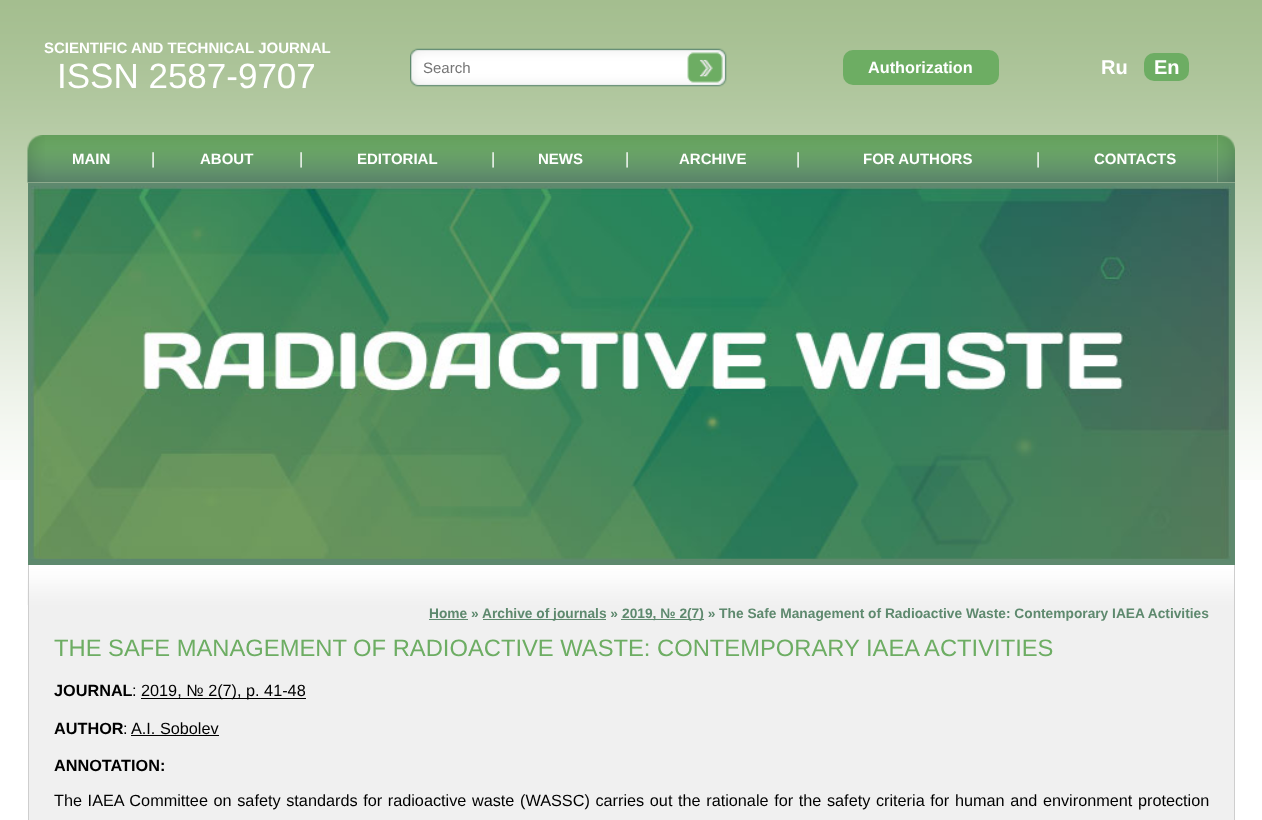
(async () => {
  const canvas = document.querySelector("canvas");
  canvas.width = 1262;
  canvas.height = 820;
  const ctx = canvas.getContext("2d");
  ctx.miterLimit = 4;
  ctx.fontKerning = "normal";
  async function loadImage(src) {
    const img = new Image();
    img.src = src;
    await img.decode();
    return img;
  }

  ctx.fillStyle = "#ffffff";
  ctx.fillRect(0, 0, 1262, 820);
  ctx.drawImage(await loadImage("img/1.png"), 0, 0, 1262, 480);
  ctx.drawImage(await loadImage("img/2.png"), 410, 48, 317, 39);
  ctx.fillStyle = "#6dad63";
  ctx.beginPath();
  ctx.roundRect(843, 50, 156, 35, 10);
  ctx.fill();
  ctx.beginPath();
  ctx.roundRect(1144, 53, 45, 28, 10);
  ctx.fill();
  ctx.drawImage(await loadImage("img/3.png"), 27, 135, 18, 48);
  ctx.drawImage(await loadImage("img/4.png"), 45, 135, 1173, 48);
  ctx.drawImage(await loadImage("img/5.png"), 1217, 135, 18, 48);
  ctx.strokeStyle = "#5e896e";
  ctx.lineWidth = 4;
  ctx.strokeRect(30, 185, 1203, 378);
  ctx.drawImage(await loadImage("img/6.png"), 31, 186, 1200, 375);
  ctx.fillStyle = "#f0f0f0";
  ctx.fillRect(29, 605, 1205, 215);
  ctx.drawImage(await loadImage("img/7.png"), 27, 565, 1207, 40);
  for (const [x, y, w, h, color] of [
    [1234, 565, 1, 255, "#cecece"],
    [28, 565, 1, 255, "#cecece"],
    [429, 619, 39, 1, "#5e896e"],
    [483, 619, 123, 1, "#5e896e"],
    [621, 619, 83, 1, "#5e896e"],
    [141, 698, 165, 1, "#000000"],
    [131, 735, 88, 1, "#000000"],
  ]) {
    ctx.fillStyle = color;
    ctx.fillRect(x, y, w, h);
  }
  ctx.font = "bold 15px Liberation Sans";
  ctx.fillStyle = "#ffffff";
  ctx.fillText("SCIENTIFIC AND TECHNICAL JOURNAL", 44, 53);
  ctx.font = "35px Liberation Sans";
  ctx.fillText("ISSN 2587-9707", 57, 88);
  ctx.font = "15px Liberation Sans";
  ctx.fillStyle = "#757575";
  ctx.fillText("Search", 423, 73);
  ctx.font = "bold 16.25px Liberation Sans";
  ctx.fillStyle = "#ffffff";
  ctx.fillText("Authorization", 868, 73);
  ctx.font = "bold 20px Liberation Sans";
  ctx.fillText("Ru", 1101, 74);
  ctx.fillText("En", 1154, 74);
  ctx.font = "bold 15px Liberation Sans";
  ctx.fillText("MAIN", 72, 164);
  ctx.font = "16.25px Liberation Sans";
  ctx.fillText("|", 151, 164);
  ctx.font = "bold 15px Liberation Sans";
  ctx.fillText("ABOUT", 200, 164);
  ctx.font = "16.25px Liberation Sans";
  ctx.fillText("|", 299, 164);
  ctx.font = "bold 15px Liberation Sans";
  ctx.fillText("EDITORIAL", 357, 164);
  ctx.font = "16.25px Liberation Sans";
  ctx.fillText("|", 491, 164);
  ctx.font = "bold 15px Liberation Sans";
  ctx.fillText("NEWS", 538, 164);
  ctx.font = "16.25px Liberation Sans";
  ctx.fillText("|", 625, 164);
  ctx.font = "bold 15px Liberation Sans";
  ctx.fillText("ARCHIVE", 679, 164);
  ctx.font = "16.25px Liberation Sans";
  ctx.fillText("|", 796, 164);
  ctx.font = "bold 15px Liberation Sans";
  ctx.fillText("FOR AUTHORS", 863, 164);
  ctx.font = "16.25px Liberation Sans";
  ctx.fillText("|", 1036, 164);
  ctx.font = "bold 15px Liberation Sans";
  ctx.fillText("CONTACTS", 1094, 164);
  ctx.font = "bold 13.75px Liberation Sans";
  ctx.fillStyle = "#5e896e";
  for (const [text, x, y] of [
    ["Home »", 429, 618],
    ["Archive of journals »", 482, 618],
    ["2019, № 2(7) » The Safe Management of Radioactive Waste: Contemporary IAEA Activities", 622, 618],
  ]) {
    ctx.fillText(text, x, y);
  }
  ctx.font = "23.75px Liberation Sans";
  ctx.fillStyle = "#6dad63";
  ctx.fillText("THE SAFE MANAGEMENT OF RADIOACTIVE WASTE: CONTEMPORARY IAEA ACTIVITIES", 54, 656);
  ctx.font = "bold 16.25px Liberation Sans";
  ctx.fillStyle = "#000000";
  ctx.fillText("JOURNAL", 54, 696);
  ctx.font = "16.25px Liberation Sans";
  ctx.fillText(":", 132, 696);
  ctx.fillText("2019, № 2(7), p. 41-48", 141, 696);
  ctx.font = "bold 16.25px Liberation Sans";
  ctx.fillText("AUTHOR", 54, 734);
  ctx.font = "16.25px Liberation Sans";
  ctx.fillText(":", 123, 734);
  ctx.fillText("A.I. Sobolev", 131, 734);
  ctx.font = "bold 16.25px Liberation Sans";
  ctx.fillText("ANNOTATION:", 54, 771);
  ctx.wordSpacing = "1.1px";
  ctx.font = "16.25px Liberation Sans";
  ctx.fillText("The IAEA Committee on safety standards for radioactive waste (WASSC) carries out the rationale for the safety criteria for human and environment protection", 54, 806);
})();
